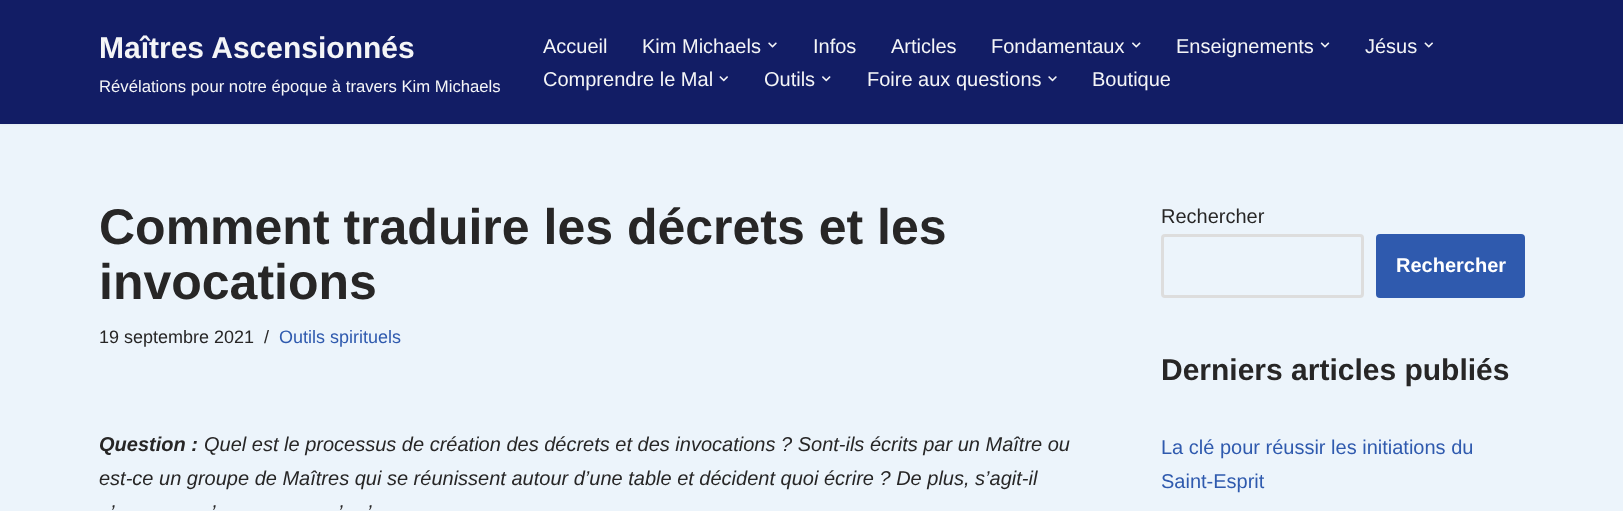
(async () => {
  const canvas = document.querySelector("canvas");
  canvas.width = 1623;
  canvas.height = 511;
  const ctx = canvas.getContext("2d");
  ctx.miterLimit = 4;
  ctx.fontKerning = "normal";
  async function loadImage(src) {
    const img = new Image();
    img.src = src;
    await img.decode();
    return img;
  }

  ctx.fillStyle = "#ecf4fb";
  ctx.fillRect(0, 0, 1623, 511);
  ctx.fillStyle = "rgba(0, 0, 0, 0.1)";
  ctx.filter = "blur(2px)";
  ctx.beginPath();
  ctx.rect(0, -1, 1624, 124);
  ctx.fill();
  ctx.filter = "none";
  ctx.fillStyle = "#121d65";
  ctx.fillRect(0, 0, 1623, 124);
  ctx.drawImage(await loadImage("img/1.png"), 768, 42, 9, 6);
  ctx.drawImage(await loadImage("img/2.png"), 1132, 42, 9, 6);
  ctx.drawImage(await loadImage("img/3.png"), 1320, 42, 10, 6);
  ctx.drawImage(await loadImage("img/4.png"), 1424, 42, 9, 6);
  ctx.drawImage(await loadImage("img/5.png"), 719, 76, 9, 6);
  ctx.drawImage(await loadImage("img/6.png"), 822, 76, 9, 6);
  ctx.drawImage(await loadImage("img/7.png"), 1048, 76, 9, 6);
  ctx.beginPath();
  ctx.roundRect(1162.5, 235.5, 200, 61, 2.5);
  ctx.strokeStyle = "#dddddd";
  ctx.lineWidth = 3;
  ctx.stroke();
  ctx.fillStyle = "#2f5aae";
  ctx.beginPath();
  ctx.roundRect(1376, 234, 149, 64, 4);
  ctx.fill();
  ctx.font = "bold 30px Liberation Sans";
  ctx.fillStyle = "#f4f5f7";
  ctx.fillText("Maîtres Ascensionnés", 99, 58);
  ctx.font = "16.7px Liberation Sans";
  ctx.fillText("Révélations pour notre époque à travers Kim Michaels", 99, 92);
  ctx.font = "20px Liberation Sans";
  for (const [text, x, y] of [
    ["Accueil", 543, 53],
    ["Kim Michaels", 642, 53],
    ["Infos", 813, 53],
    ["Articles", 891, 53],
    ["Fondamentaux", 991, 53],
    ["Enseignements", 1176, 53],
    ["Jésus", 1365, 53],
    ["Comprendre le Mal", 543, 86],
    ["Outils", 764, 86],
    ["Foire aux questions", 867, 86],
    ["Boutique", 1092, 86],
  ]) {
    ctx.fillText(text, x, y);
  }
  ctx.font = "bold 50px Liberation Sans";
  ctx.fillStyle = "#272626";
  ctx.fillText("Comment traduire les décrets et les", 99, 244);
  ctx.fillText("invocations", 99, 299);
  ctx.font = "18px Liberation Sans";
  ctx.fillText("19 septembre 2021", 99, 343);
  ctx.fillText("/", 264, 343);
  ctx.fillStyle = "#2f5aae";
  ctx.fillText("Outils spirituels", 279, 343);
  ctx.font = "italic bold 20px Liberation Sans";
  ctx.fillStyle = "#272626";
  ctx.fillText("Question :", 99, 451);
  ctx.font = "italic 20px Liberation Sans";
  for (const [text, x, y] of [
    ["Quel est le processus de création des décrets et des invocations ? Sont-ils écrits par un Maître ou", 204, 451],
    ["est-ce un groupe de Maîtres qui se réunissent autour d’une table et décident quoi écrire ? De plus, s’agit-il", 99, 485],
    ["’", 110, 519],
    ["’", 211, 519],
    ["’", 338, 519],
    ["’", 367, 519],
  ]) {
    ctx.fillText(text, x, y);
  }
  ctx.font = "20px Liberation Sans";
  ctx.fillText("Rechercher", 1161, 223);
  ctx.font = "bold 20px Liberation Sans";
  ctx.fillStyle = "#ffffff";
  ctx.fillText("Rechercher", 1396, 272);
  ctx.font = "bold 30px Liberation Sans";
  ctx.fillStyle = "#272626";
  ctx.fillText("Derniers articles publiés", 1161, 380);
  ctx.font = "20px Liberation Sans";
  ctx.fillStyle = "#2f5aae";
  ctx.fillText("La clé pour réussir les initiations du", 1161, 454);
  ctx.fillText("Saint-Esprit", 1161, 488);
})();
